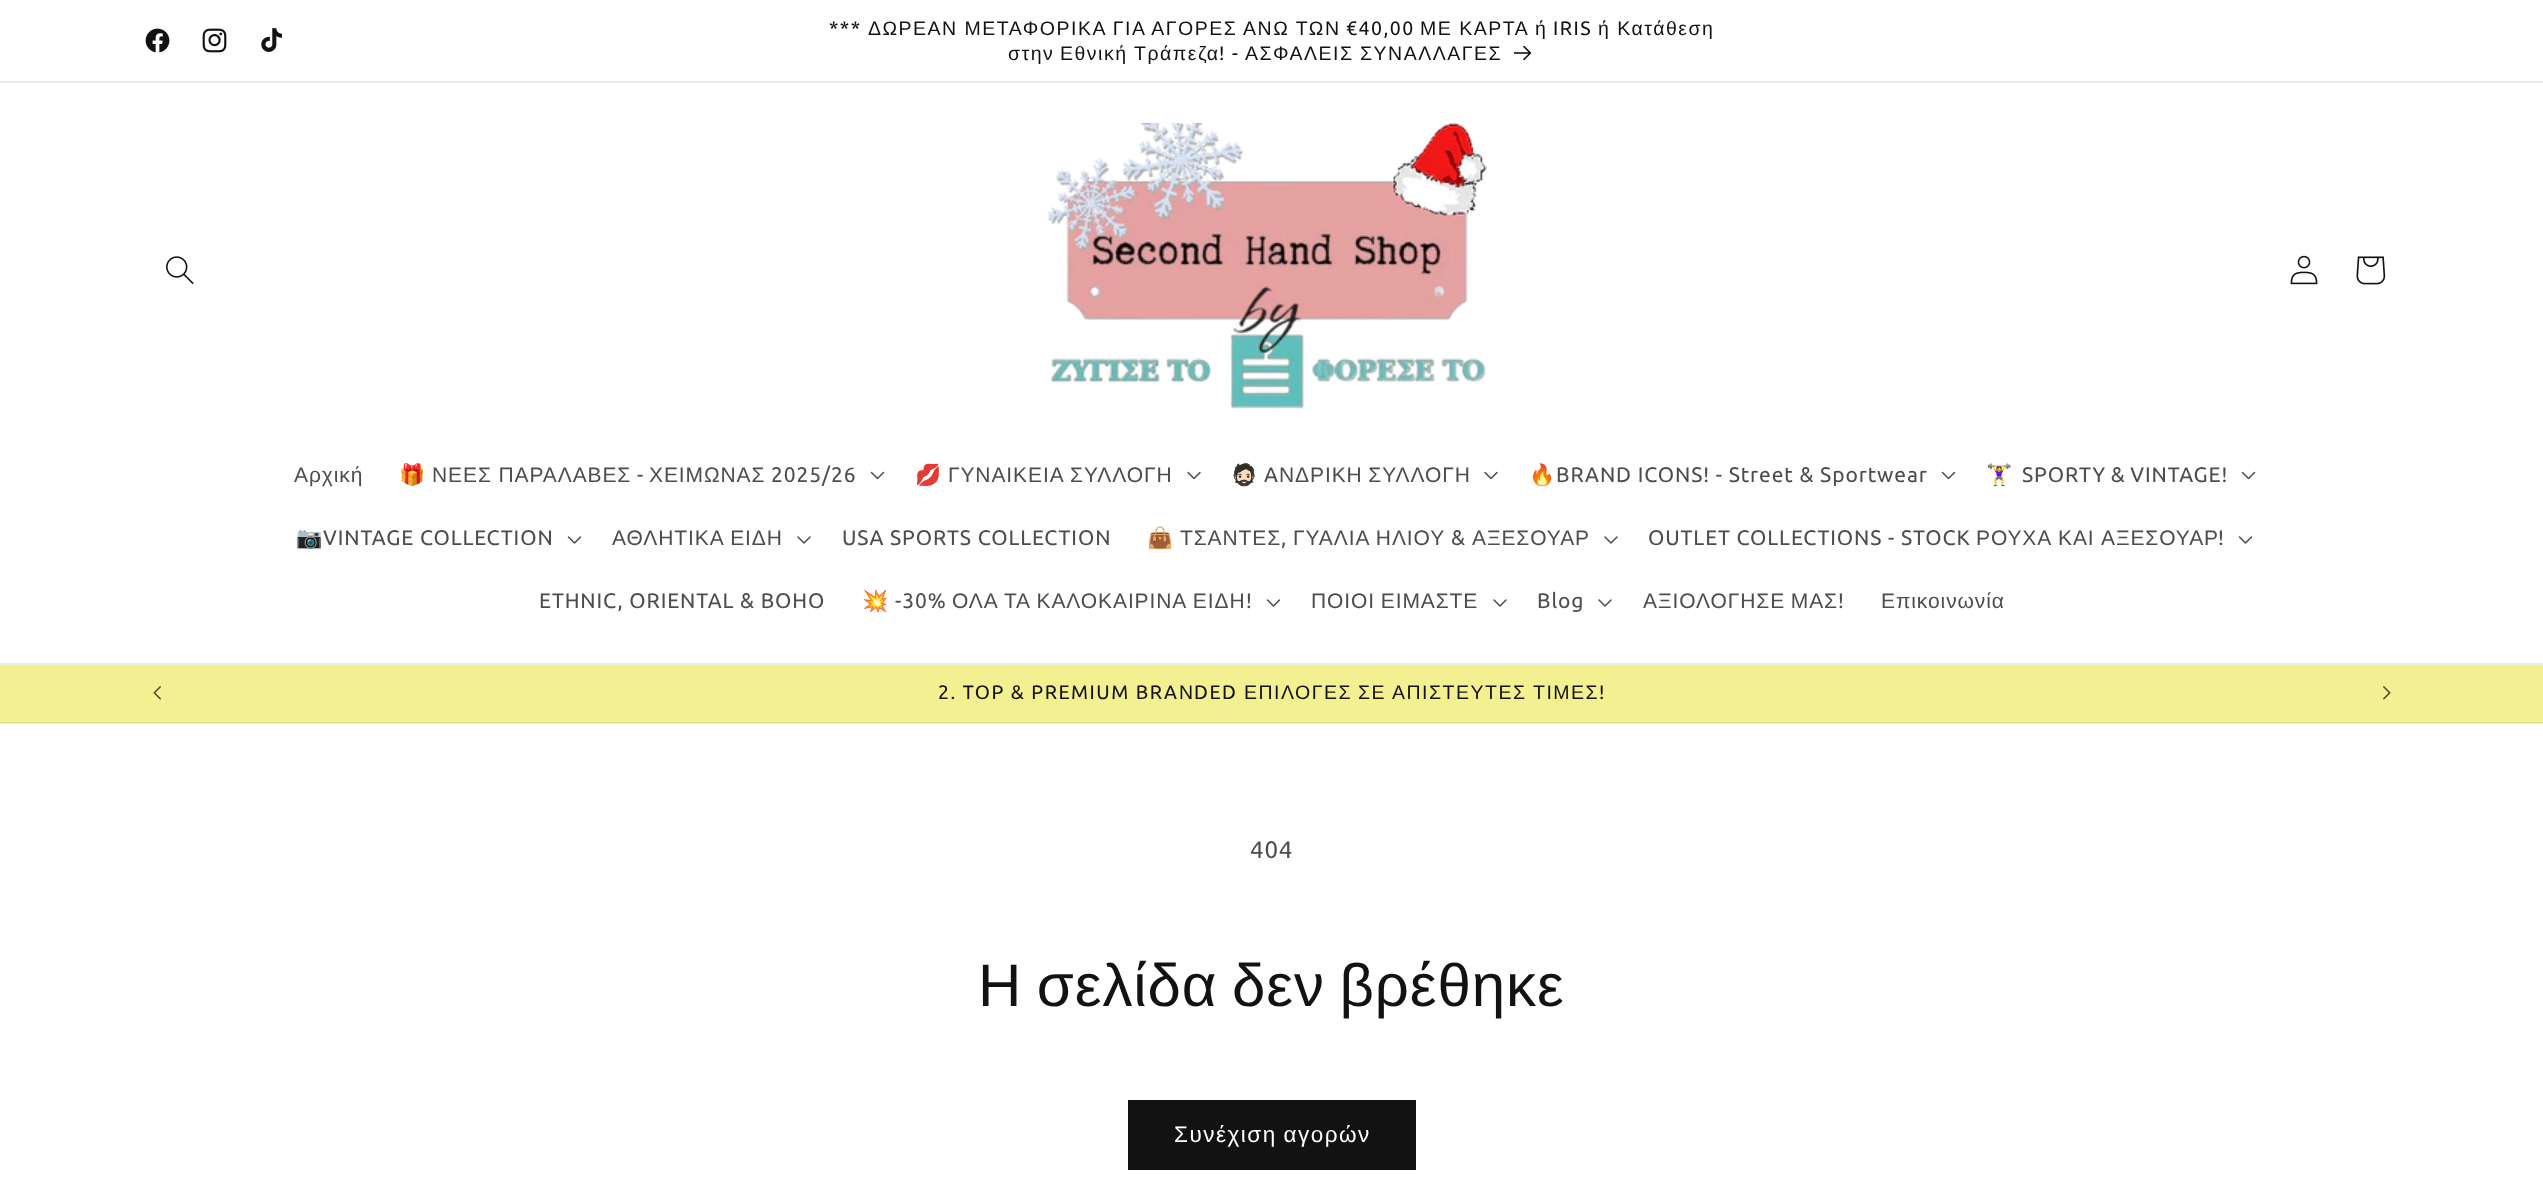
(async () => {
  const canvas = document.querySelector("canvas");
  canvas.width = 2543;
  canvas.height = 1179;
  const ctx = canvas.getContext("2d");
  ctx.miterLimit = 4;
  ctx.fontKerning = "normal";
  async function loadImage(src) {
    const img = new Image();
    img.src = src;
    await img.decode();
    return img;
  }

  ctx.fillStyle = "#ffffff";
  ctx.fillRect(0, 0, 2543, 1179);
  ctx.fillStyle = "#ececec";
  ctx.fillRect(0, 723, 2543, 1);
  ctx.fillRect(0, 81, 2543, 2);
  ctx.drawImage(await loadImage("img/1.png"), 145, 28, 25, 25);
  ctx.drawImage(await loadImage("img/2.png"), 202, 28, 25, 25);
  ctx.drawImage(await loadImage("img/3.png"), 261, 28, 21, 24);
  ctx.drawImage(await loadImage("img/4.png"), 1514, 45, 18, 16);
  ctx.fillRect(0, 663, 2543, 2);
  ctx.drawImage(await loadImage("img/5.png"), 166, 256, 28, 28);
  ctx.drawImage(await loadImage("img/6.png"), 1047, 123, 440, 286);
  ctx.drawImage(await loadImage("img/7.png"), 2290, 255, 28, 30);
  ctx.drawImage(await loadImage("img/8.png"), 2356, 256, 30, 29);
  ctx.drawImage(await loadImage("img/9.png"), 870, 471, 15, 9);
  ctx.drawImage(await loadImage("img/10.png"), 1187, 471, 14, 9);
  ctx.drawImage(await loadImage("img/10.png"), 1484, 471, 14, 9);
  ctx.drawImage(await loadImage("img/9.png"), 1941, 471, 15, 9);
  ctx.drawImage(await loadImage("img/9.png"), 2241, 471, 15, 9);
  ctx.drawImage(await loadImage("img/11.png"), 567, 536, 15, 8);
  ctx.drawImage(await loadImage("img/12.png"), 797, 536, 14, 8);
  ctx.drawImage(await loadImage("img/12.png"), 1604, 536, 14, 8);
  ctx.drawImage(await loadImage("img/11.png"), 2238, 536, 15, 8);
  ctx.drawImage(await loadImage("img/11.png"), 1266, 599, 15, 8);
  ctx.drawImage(await loadImage("img/12.png"), 1493, 599, 14, 8);
  ctx.drawImage(await loadImage("img/12.png"), 1598, 599, 14, 8);
  ctx.fillStyle = "#f2f091";
  ctx.fillRect(0, 665, 2543, 57);
  ctx.fillStyle = "#e0de87";
  ctx.fillRect(0, 722, 2543, 1);
  ctx.drawImage(await loadImage("img/13.png"), 153, 686, 8, 14);
  ctx.drawImage(await loadImage("img/14.png"), 2383, 686, 8, 14);
  ctx.fillStyle = "#121212";
  ctx.fillRect(1128, 1100, 288, 70);
  ctx.letterSpacing = "1.5px";
  ctx.font = "19.5px Ubuntu";
  ctx.fillText("***", 829, 35);
  ctx.font = "19.5px Liberation Sans";
  ctx.fillText("ΔΩΡΕΑΝ ΜΕΤΑΦΟΡΙΚΑ ΓΙΑ ΑΓΟΡΕΣ ΑΝΩ ΤΩΝ", 868, 35);
  ctx.font = "19.5px Ubuntu";
  ctx.fillText("€40,00", 1346, 35);
  ctx.font = "19.5px Liberation Sans";
  ctx.fillText("ΜΕ ΚΑΡΤΑ ή", 1420, 35);
  ctx.font = "19.5px Ubuntu";
  ctx.fillText("IRIS", 1553, 35);
  ctx.font = "19.5px Liberation Sans";
  for (const [text, x, y] of [
    ["ή Κατάθεση", 1598, 35],
    ["στην", 1008, 60],
    ["Εθνική", 1060, 60],
    ["Τράπεζα", 1134, 60],
  ]) {
    ctx.fillText(text, x, y);
  }
  ctx.font = "19.5px Ubuntu";
  ctx.fillText("! -", 1219, 60);
  ctx.font = "19.5px Liberation Sans";
  ctx.fillText("ΑΣΦΑΛΕΙΣ", 1245, 60);
  ctx.fillText("ΣΥΝΑΛΛΑΓΕΣ", 1360, 60);
  ctx.letterSpacing = "0.9px";
  ctx.font = "21px Liberation Sans";
  ctx.fillStyle = "#4d4d4d";
  ctx.fillText("Αρχική", 294, 482);
  ctx.font = "21px Noto Color Emoji";
  ctx.fillText("🎁", 399, 482);
  ctx.font = "21px Liberation Sans";
  ctx.fillText("ΝΕΕΣ ΠΑΡΑΛΑΒΕΣ", 432, 482);
  ctx.font = "21px Ubuntu";
  ctx.fillText("-", 637, 482);
  ctx.font = "21px Liberation Sans";
  ctx.fillText("ΧΕΙΜΩΝΑΣ", 649, 482);
  ctx.font = "21px Ubuntu";
  ctx.fillText("2025/26", 771, 482);
  ctx.font = "21px Noto Color Emoji";
  ctx.fillText("💋", 915, 482);
  ctx.font = "21px Liberation Sans";
  ctx.fillText("ΓΥΝΑΙΚΕΙΑ ΣΥΛΛΟΓΗ", 948, 482);
  ctx.font = "21px Noto Color Emoji";
  ctx.fillText("🧔🏻", 1231, 482);
  ctx.font = "21px Ubuntu";
  ctx.fillText("A", 1264, 482);
  ctx.wordSpacing = "-1px";
  ctx.font = "21px Liberation Sans";
  ctx.fillText("ΝΔΡΙΚΗ ΣΥΛΛΟΓΗ", 1279, 482);
  ctx.wordSpacing = "0px";
  ctx.font = "21px Noto Color Emoji";
  ctx.fillText("🔥", 1529, 482);
  ctx.font = "21px Ubuntu";
  ctx.fillText("BRAND ICONS! - Street & Sportwear", 1556, 482);
  ctx.font = "21px Noto Color Emoji";
  ctx.fillText("🏋️‍♀️", 1986, 482);
  ctx.wordSpacing = "-1px";
  ctx.font = "21px Ubuntu";
  ctx.fillText("SPORTY & VINTAGE!", 2022, 482);
  ctx.wordSpacing = "0px";
  ctx.font = "21px Noto Color Emoji";
  ctx.fillText("📷", 296, 545);
  ctx.font = "21px Ubuntu";
  ctx.fillText("VINTAGE COLLECTION", 323, 545);
  ctx.font = "21px Liberation Sans";
  ctx.fillText("ΑΘΛΗΤΙΚΑ ΕΙΔΗ", 612, 545);
  ctx.font = "21px Ubuntu";
  ctx.fillText("USA SPORTS COLLECTION", 842, 545);
  ctx.font = "21px Noto Color Emoji";
  ctx.fillText("👜", 1147, 545);
  ctx.font = "21px Liberation Sans";
  ctx.fillText("ΤΣΑΝΤΕΣ", 1180, 545);
  ctx.font = "21px Ubuntu";
  ctx.fillText(",", 1281, 545);
  ctx.font = "21px Liberation Sans";
  ctx.fillText("ΓΥΑΛΙΑ ΗΛΙΟΥ", 1293, 545);
  ctx.font = "21px Ubuntu";
  ctx.fillText("&", 1451, 545);
  ctx.font = "21px Liberation Sans";
  ctx.fillText("ΑΞΕΣΟΥΑΡ", 1472, 545);
  ctx.font = "21px Ubuntu";
  ctx.fillText("OUTLET COLLECTIONS - STOCK", 1648, 545);
  ctx.font = "21px Liberation Sans";
  for (const [text, x, y] of [
    ["ΡΟΥΧΑ", 1976, 545],
    ["ΚΑΙ", 2058, 545],
    ["ΑΞΕΣΟΥΑΡ", 2101, 545],
  ]) {
    ctx.fillText(text, x, y);
  }
  ctx.font = "21px Ubuntu";
  ctx.fillText("!", 2218, 545);
  ctx.fillText("ETHNIC, ORIENTAL & BOHO", 539, 608);
  ctx.font = "21px Noto Color Emoji";
  ctx.fillText("💥", 862, 608);
  ctx.font = "21px Ubuntu";
  ctx.fillText("-30%", 895, 608);
  ctx.font = "21px Liberation Sans";
  ctx.fillText("ΟΛΑ ΤΑ ΚΑΛΟΚΑΙΡΙΝΑ ΕΙΔΗ", 952, 608);
  ctx.font = "21px Ubuntu";
  ctx.fillText("!", 1246, 608);
  ctx.wordSpacing = "-1px";
  ctx.font = "21px Liberation Sans";
  ctx.fillText("ΠΟΙΟΙ ΕΙΜΑΣΤΕ", 1311, 608);
  ctx.wordSpacing = "0px";
  ctx.font = "21px Ubuntu";
  ctx.fillText("Blog", 1537, 608);
  ctx.wordSpacing = "-1px";
  ctx.font = "21px Liberation Sans";
  ctx.fillText("ΑΞΙΟΛΟΓΗΣΕ ΜΑΣ", 1643, 608);
  ctx.wordSpacing = "0px";
  ctx.font = "21px Ubuntu";
  ctx.fillText("!", 1838, 608);
  ctx.font = "21px Liberation Sans";
  ctx.fillText("Επικοινωνία", 1881, 608);
  ctx.letterSpacing = "1.5px";
  ctx.font = "19.5px Ubuntu";
  ctx.fillStyle = "#121212";
  ctx.fillText("2. TOP & PREMIUM BRA", 938, 699);
  ctx.font = "19.5px Liberation Sans";
  ctx.fillText("Ν", 1179, 699);
  ctx.font = "19.5px Ubuntu";
  ctx.fillText("DED", 1194, 699);
  ctx.font = "19.5px Liberation Sans";
  for (const [text, x, y] of [
    ["ΕΠΙΛΟΓΕΣ", 1244, 699],
    ["ΣΕ", 1358, 699],
    ["ΑΠΙΣΤΕΥΤΕΣ", 1392, 699],
    ["ΤΙΜΕΣ", 1533, 699],
  ]) {
    ctx.fillText(text, x, y);
  }
  ctx.font = "19.5px Ubuntu";
  ctx.fillText("!", 1599, 699);
  ctx.letterSpacing = "0.9px";
  ctx.font = "24px Ubuntu";
  ctx.fillStyle = "#4d4d4d";
  ctx.fillText("404", 1250, 858);
  ctx.wordSpacing = "-3px";
  ctx.font = "60px Liberation Sans";
  ctx.fillStyle = "#121212";
  ctx.fillText("Η σελίδα δεν βρέθηκε", 978, 1006);
  ctx.letterSpacing = "1.5px";
  ctx.wordSpacing = "-1px";
  ctx.font = "22.5px Liberation Sans";
  ctx.fillStyle = "#ffffff";
  ctx.fillText("Συνέχιση αγορών", 1174, 1142);
})();
